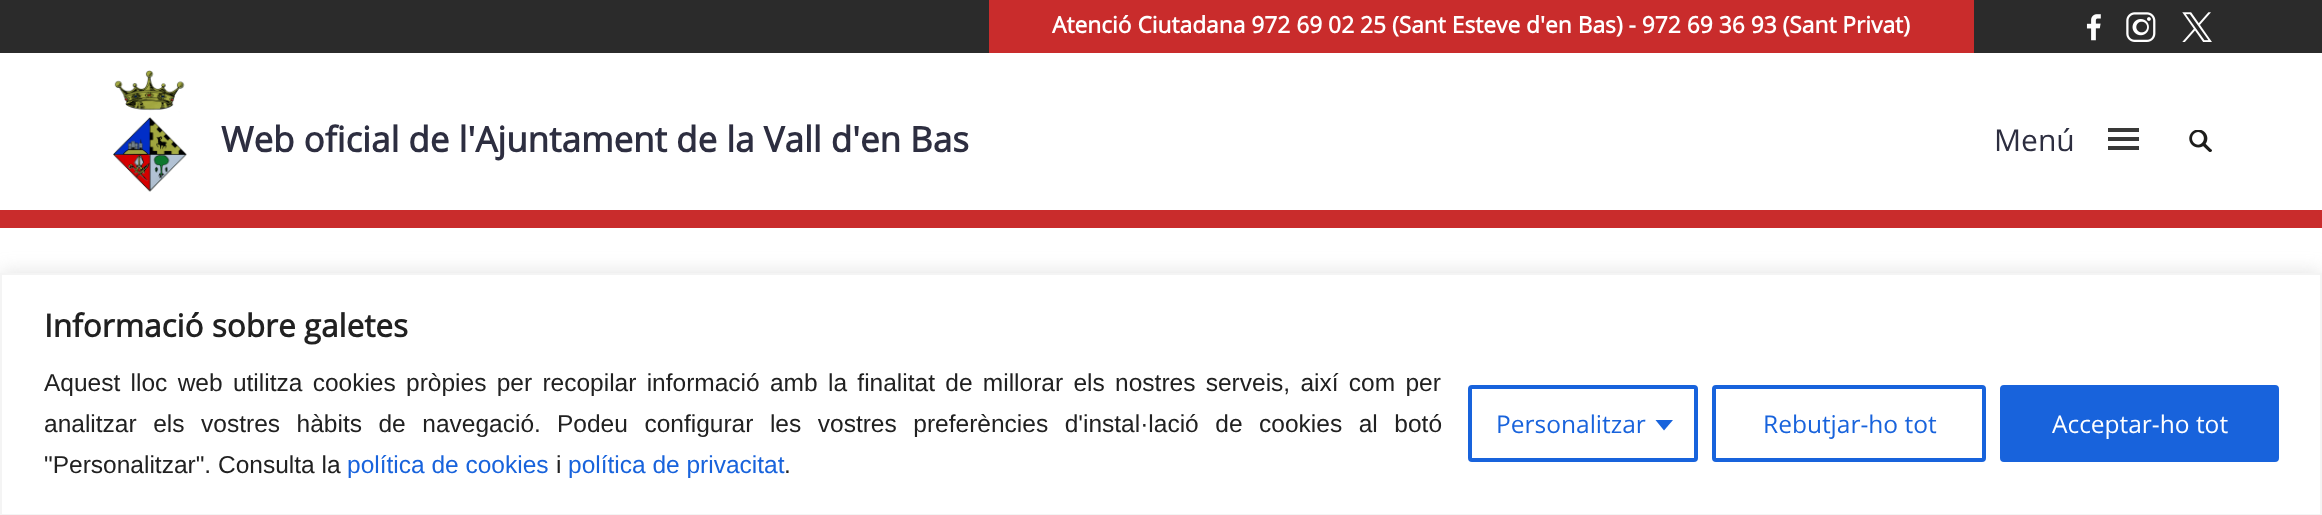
(async () => {
  const canvas = document.querySelector("canvas");
  canvas.width = 2322;
  canvas.height = 515;
  const ctx = canvas.getContext("2d");
  ctx.miterLimit = 4;
  ctx.fontKerning = "normal";
  async function loadImage(src) {
    const img = new Image();
    img.src = src;
    await img.decode();
    return img;
  }
  let path;

  ctx.fillStyle = "#ffffff";
  ctx.fillRect(0, 0, 2322, 515);
  for (const [x, y, w, h, color] of [
    [0, 210, 2322, 18, "#c92c2c"],
    [0, 0, 2322, 53, "#2b2b2b"],
    [989, 0, 985, 53, "#c92c2c"],
  ]) {
    ctx.fillStyle = color;
    ctx.fillRect(x, y, w, h);
  }
  ctx.drawImage(await loadImage("img/1.png"), 2086, 14, 15, 27);
  ctx.drawImage(await loadImage("img/2.png"), 2126, 12, 30, 30);
  ctx.drawImage(await loadImage("img/3.png"), 2182, 12, 30, 30);
  ctx.drawImage(await loadImage("img/4.png"), 113, 70, 74, 122);
  for (const [x, y, w, h, color] of [
    [2108, 128, 31, 4, "#393938"],
    [2108, 137, 31, 4, "#393938"],
    [2108, 146, 31, 4, "#393938"],
  ]) {
    ctx.fillStyle = color;
    ctx.fillRect(x, y, w, h);
  }
  ctx.drawImage(await loadImage("img/5.png"), 2189, 130, 23, 22);
  ctx.fillStyle = "rgba(172, 171, 171, 0.3)";
  ctx.filter = "blur(9px)";
  ctx.beginPath();
  ctx.rect(0, 271, 2322, 244);
  ctx.fill();
  ctx.filter = "none";
  ctx.fillStyle = "#ffffff";
  ctx.beginPath();
  ctx.rect(1, 274, 2320, 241);
  ctx.fill();
  ctx.strokeStyle = "#f4f4f4";
  ctx.lineWidth = 2;
  ctx.stroke();
  ctx.beginPath();
  ctx.roundRect(1470, 387, 226, 73, 2);
  ctx.strokeStyle = "#1863dc";
  ctx.lineWidth = 4;
  ctx.stroke();
  ctx.fillStyle = "#1863dc";
  path = new Path2D("M1655.5 420H1673L1664 430.5Z");
  ctx.fill(path);
  ctx.beginPath();
  ctx.roundRect(1714, 387, 270, 73, 2);
  ctx.stroke();
  ctx.beginPath();
  ctx.roundRect(2002, 387, 275, 73, 2);
  ctx.fill();
  ctx.stroke();
  ctx.font = "bold 22.75px Open Sans";
  ctx.fillStyle = "#ffffff";
  ctx.fillText("Atenció Ciutadana 972 69 02 25 (Sant Esteve d'en Bas) - 972 69 36 93 (Sant Privat)", 1052, 33);
  ctx.font = "bold 35px Open Sans";
  ctx.fillStyle = "#2d2e40";
  ctx.fillText("Web oficial de l'Ajuntament de la Vall d'en Bas", 221, 152);
  ctx.font = "30px Open Sans";
  ctx.fillText("Menú", 1994, 151);
  ctx.font = "bold 31.5px Open Sans";
  ctx.fillStyle = "#212121";
  ctx.fillText("Informació sobre galetes", 44, 337);
  ctx.wordSpacing = "3.5px";
  ctx.font = "24.5px Liberation Sans";
  ctx.fillText("Aquest lloc web utilitza cookies pròpies per recopilar informació amb la finalitat de millorar els nostres serveis, així com per", 44, 391);
  ctx.wordSpacing = "9.75px";
  ctx.fillText("analitzar els vostres hàbits de navegació.", 44, 432);
  ctx.fillText("Podeu configurar les vostres preferències d'instal·lació de cookies al botó", 557, 432);
  ctx.wordSpacing = "0px";
  ctx.fillText("\"Personalitzar\". Consulta la", 44, 473);
  ctx.fillStyle = "#1863dc";
  ctx.fillText("política de cookies", 347, 473);
  ctx.fillStyle = "#212121";
  ctx.fillText("i", 556, 473);
  ctx.fillStyle = "#1863dc";
  ctx.fillText("política de privacitat", 568, 473);
  ctx.fillStyle = "#212121";
  ctx.fillText(".", 784, 473);
  ctx.font = "24.5px Open Sans";
  ctx.fillStyle = "#1863dc";
  ctx.fillText("Personalitzar", 1496, 433);
  ctx.fillText("Rebutjar-ho tot", 1763, 433);
  ctx.fillStyle = "#ffffff";
  ctx.fillText("Acceptar-ho tot", 2052, 433);
})();
